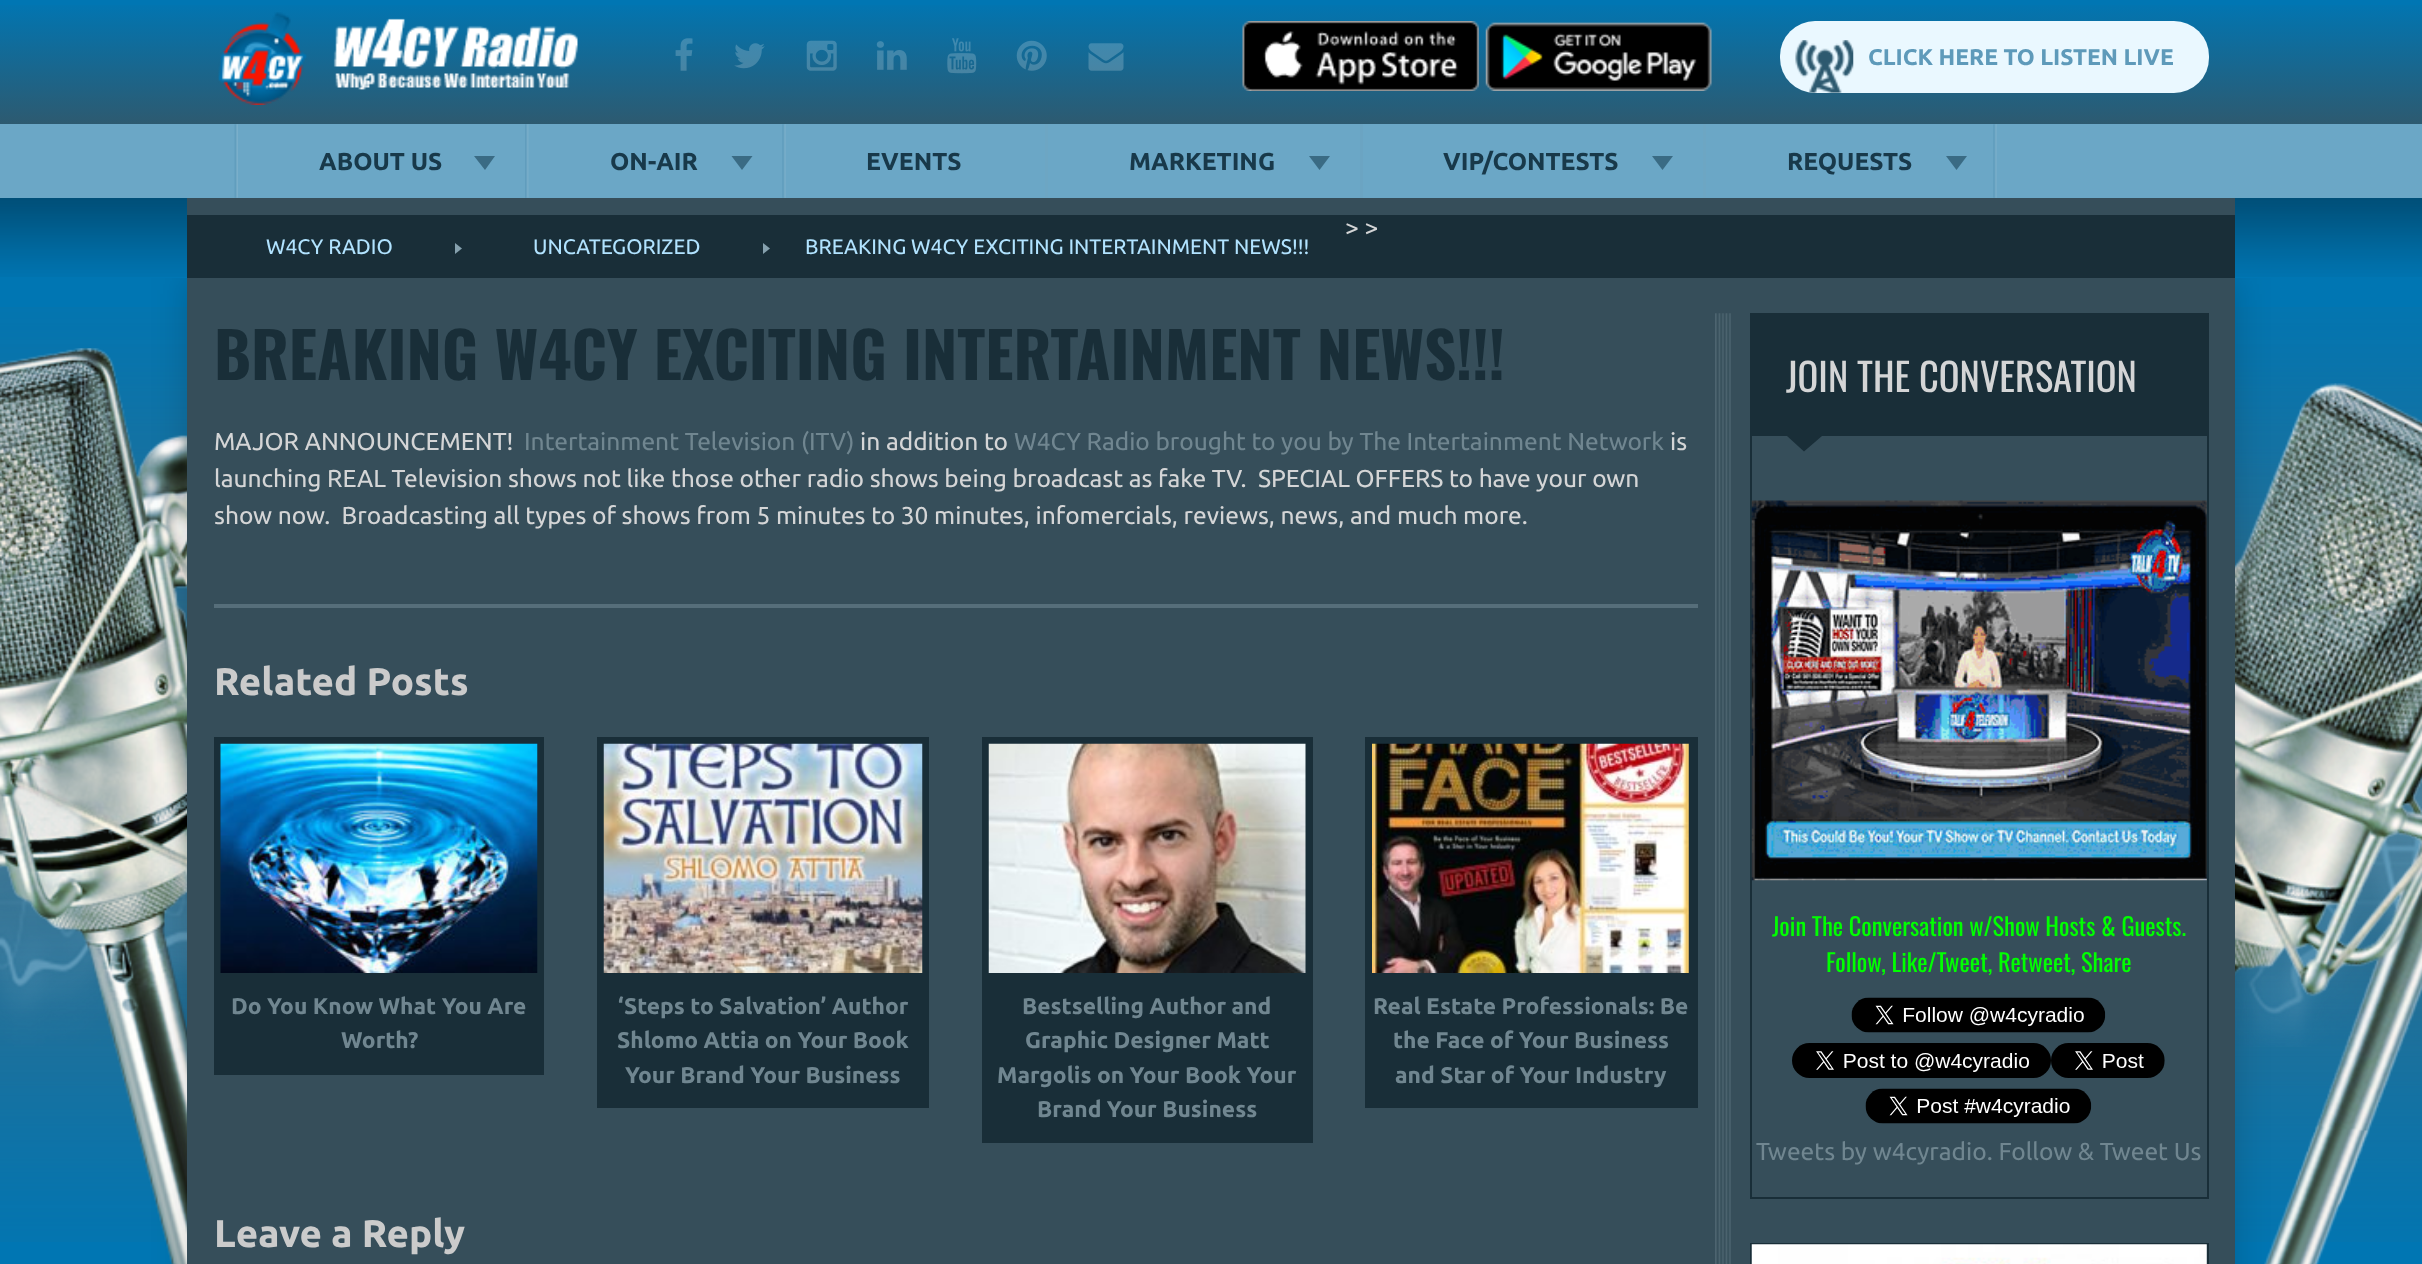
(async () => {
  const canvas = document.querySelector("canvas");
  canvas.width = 2422;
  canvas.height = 1264;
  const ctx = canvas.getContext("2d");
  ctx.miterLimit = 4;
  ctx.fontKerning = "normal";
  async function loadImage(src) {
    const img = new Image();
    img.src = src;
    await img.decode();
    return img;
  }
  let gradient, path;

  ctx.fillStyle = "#0076b3";
  ctx.fillRect(0, 0, 2422, 1264);
  gradient = ctx.createLinearGradient(1211, 0, 1211, 124);
  gradient.addColorStop(0, "#0076b3");
  gradient.addColorStop(1, "#2d5a70");
  ctx.fillStyle = gradient;
  ctx.fillRect(0, 5, 2422, 119);
  ctx.drawImage(await loadImage("img/1.png"), 218, 12, 360, 93);
  ctx.drawImage(await loadImage("img/2.png"), 675, 38, 18, 33);
  ctx.drawImage(await loadImage("img/3.png"), 734, 43, 31, 26);
  ctx.drawImage(await loadImage("img/4.png"), 806, 40, 31, 31);
  ctx.drawImage(await loadImage("img/5.png"), 876, 41, 31, 29);
  ctx.drawImage(await loadImage("img/6.png"), 947, 38, 30, 36);
  ctx.drawImage(await loadImage("img/7.png"), 1016, 40, 31, 31);
  ctx.drawImage(await loadImage("img/8.png"), 1088, 43, 36, 28);
  ctx.drawImage(await loadImage("img/9.png"), 1242, 21, 237, 70);
  ctx.drawImage(await loadImage("img/10.png"), 1485, 22, 227, 69);
  ctx.fillStyle = "#eaf8ff";
  ctx.beginPath();
  ctx.roundRect(1780, 21, 429, 72, 35);
  ctx.fill();
  ctx.drawImage(await loadImage("img/11.png"), 1795, 40, 59, 53);
  ctx.fillStyle = "#6ba7c6";
  ctx.fillRect(0, 124, 2422, 74);
  ctx.drawImage(await loadImage("img/12.png"), 234, 124, 4, 74);
  ctx.fillStyle = "#3a6b84";
  path = new Path2D("M474 156H495L485 170Z");
  ctx.fill(path);
  ctx.drawImage(await loadImage("img/13.png"), 525, 124, 4, 74);
  path = new Path2D("M731.5 156H752.5L742 170Z");
  ctx.fill(path);
  ctx.drawImage(await loadImage("img/14.png"), 782, 124, 4, 74);
  ctx.fillStyle = "#6da6c3";
  ctx.fillRect(1045, 124, 3, 74);
  ctx.fillStyle = "#3a6b84";
  path = new Path2D("M1309 156H1330L1319.5 170Z");
  ctx.fill(path);
  ctx.fillStyle = "#6ba4c2";
  ctx.fillRect(1360, 124, 3, 74);
  ctx.fillStyle = "#3a6b84";
  path = new Path2D("M1652 156H1673L1662.5 170Z");
  ctx.fill(path);
  ctx.fillStyle = "#6da6c3";
  ctx.fillRect(1703, 124, 3, 74);
  ctx.fillStyle = "#3a6b84";
  path = new Path2D("M1946 156H1967L1956.5 170Z");
  ctx.fill(path);
  ctx.drawImage(await loadImage("img/14.png"), 1993, 124, 4, 74);
  ctx.drawImage(await loadImage("img/15.png"), 0, 198, 2422, 79);
  ctx.fillStyle = "#192e38";
  ctx.fillRect(187, 215, 2048, 63);
  ctx.fillStyle = "#364e5a";
  ctx.fillRect(187, 198, 2048, 17);
  ctx.fillStyle = "#86a1ae";
  path = new Path2D("M455 254V243L462 248.5Z");
  ctx.fill(path);
  path = new Path2D("M763 254V243L770 248.5Z");
  ctx.fill(path);
  ctx.drawImage(await loadImage("img/16.png"), 0, 307, 2422, 935);
  ctx.drawImage(await loadImage("img/30.png"), 0, 772, 2422, 275);
  ctx.drawImage(await loadImage("img/17.png"), 0, 348, 187, 916);
  ctx.drawImage(await loadImage("img/29.png"), 2235, 383, 187, 881);
  ctx.save();
  ctx.beginPath();
  ctx.rect(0, 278, 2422, 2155);
  ctx.clip();
  ctx.fillStyle = "rgba(0, 0, 0, 0.18)";
  ctx.filter = "blur(17.5px)";
  ctx.beginPath();
  ctx.rect(187, 278, 2048, 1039);
  ctx.fill();
  ctx.filter = "none";
  ctx.restore();
  ctx.fillStyle = "#364e5a";
  ctx.fillRect(187, 278, 2048, 986);
  ctx.drawImage(await loadImage("img/18.png"), 1715, 313, 16, 951);
  ctx.fillStyle = "#566e7a";
  ctx.fillRect(214, 604, 1484, 4);
  ctx.fillStyle = "#192e38";
  ctx.fillRect(214, 737, 330, 338);
  ctx.drawImage(await loadImage("img/19.png"), 220, 743, 318, 230);
  ctx.fillRect(597, 737, 332, 371);
  ctx.drawImage(await loadImage("img/20.png"), 603, 743, 320, 230);
  ctx.fillRect(982, 737, 331, 406);
  ctx.drawImage(await loadImage("img/21.png"), 988, 743, 318, 230);
  ctx.fillRect(1365, 737, 333, 371);
  ctx.drawImage(await loadImage("img/22.png"), 1372, 743, 317, 230);
  ctx.strokeStyle = "#192e38";
  ctx.lineWidth = 2;
  ctx.strokeRect(1751, 314, 457, 884);
  ctx.fillRect(1752, 315, 455, 121);
  path = new Path2D("M1787 436H1822L1804 451.5Z");
  ctx.fill(path);
  ctx.drawImage(await loadImage("img/23.png"), 1751, 500, 456, 381);
  ctx.drawImage(await loadImage("img/24.png"), 1851, 997, 255, 36);
  ctx.drawImage(await loadImage("img/25.png"), 1792, 1043, 259, 35);
  ctx.drawImage(await loadImage("img/26.png"), 2051, 1043, 114, 35);
  ctx.drawImage(await loadImage("img/27.png"), 1865, 1088, 227, 36);
  ctx.strokeRect(1751, 1244, 457, 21);
  ctx.drawImage(await loadImage("img/28.png"), 1751, 1244, 456, 20);
  ctx.font = "bold 22.75px Ubuntu";
  ctx.fillStyle = "#5e9aba";
  ctx.fillText("CLICK HERE TO LISTEN LIVE", 1868, 65);
  ctx.font = "bold 24.5px Ubuntu";
  ctx.fillStyle = "#18394a";
  for (const [text, x, y] of [
    ["ABOUT US", 319, 170],
    ["ON-AIR", 610, 170],
    ["EVENTS", 866, 170],
    ["MARKETING", 1129, 170],
    ["VIP/CONTESTS", 1443, 170],
    ["REQUESTS", 1787, 170],
  ]) {
    ctx.fillText(text, x, y);
  }
  ctx.font = "24.5px Ubuntu";
  ctx.fillStyle = "#d4d5d6";
  ctx.fillText("> >", 1345, 236);
  ctx.font = "21px Ubuntu";
  ctx.fillStyle = "#b1e3ff";
  for (const [text, x, y] of [
    ["W4CY RADIO", 266, 254],
    ["UNCATEGORIZED", 533, 254],
    ["BREAKING W4CY EXCITING INTERTAINMENT NEWS!!!", 805, 254],
  ]) {
    ctx.fillText(text, x, y);
  }
  ctx.font = "bold 63px Oswald";
  ctx.fillStyle = "#192e38";
  ctx.fillText("BREAKING W4CY EXCITING INTERTAINMENT NEWS!!!", 214, 380);
  ctx.font = "24.5px Ubuntu";
  ctx.fillStyle = "#d4d5d6";
  ctx.fillText("MAJOR ANNOUNCEMENT!", 214, 450);
  ctx.fillStyle = "#708690";
  ctx.fillText("Intertainment Television (ITV)", 524, 450);
  ctx.fillStyle = "#d4d5d6";
  ctx.fillText("in addition to", 860, 450);
  ctx.fillStyle = "#708690";
  ctx.fillText("W4CY Radio brought to you by The Intertainment Network", 1014, 450);
  ctx.fillStyle = "#d4d5d6";
  for (const [text, x, y] of [
    ["is", 1670, 450],
    ["launching REAL Television shows not like those other radio shows being broadcast as fake TV.  SPECIAL OFFERS to have your own", 214, 487],
    ["show now.  Broadcasting all types of shows from 5 minutes to 30 minutes, infomercials, reviews, news, and much more.", 214, 524],
  ]) {
    ctx.fillText(text, x, y);
  }
  ctx.font = "bold 38.5px Ubuntu";
  ctx.fillStyle = "#cbcbcb";
  ctx.fillText("Related Posts", 214, 695);
  ctx.font = "bold 22.75px Ubuntu";
  ctx.fillStyle = "#708690";
  for (const [text, x, y] of [
    ["Do You Know What You Are", 231, 1014],
    ["Worth?", 341, 1048],
    ["‘Steps to Salvation’ Author", 618, 1014],
    ["Shlomo Attia on Your Book", 617, 1048],
    ["Your Brand Your Business", 625, 1083],
    ["Bestselling Author and", 1022, 1014],
    ["Graphic Designer Matt", 1025, 1048],
    ["Margolis on Your Book Your", 997, 1083],
    ["Brand Your Business", 1037, 1117],
    ["Real Estate Professionals: Be", 1373, 1014],
    ["the Face of Your Business", 1393, 1048],
    ["and Star of Your Industry", 1395, 1083],
  ]) {
    ctx.fillText(text, x, y);
  }
  ctx.font = "bold 38.5px Ubuntu";
  ctx.fillStyle = "#cbcbcb";
  ctx.fillText("Leave a Reply", 214, 1247);
  ctx.font = "38.5px Oswald";
  ctx.fillStyle = "#d4d5d6";
  ctx.fillText("JOIN THE CONVERSATION", 1786, 392);
  ctx.font = "24.5px Oswald";
  ctx.fillStyle = "#00ff00";
  ctx.fillText("Join The Conversation w/Show Hosts & Guests.", 1772, 936);
  ctx.fillText("Follow, Like/Tweet, Retweet, Share", 1826, 972);
  ctx.font = "24.5px Ubuntu";
  ctx.fillStyle = "#708690";
  ctx.fillText("Tweets by w4cyradio. Follow & Tweet Us", 1756, 1160);
})();
